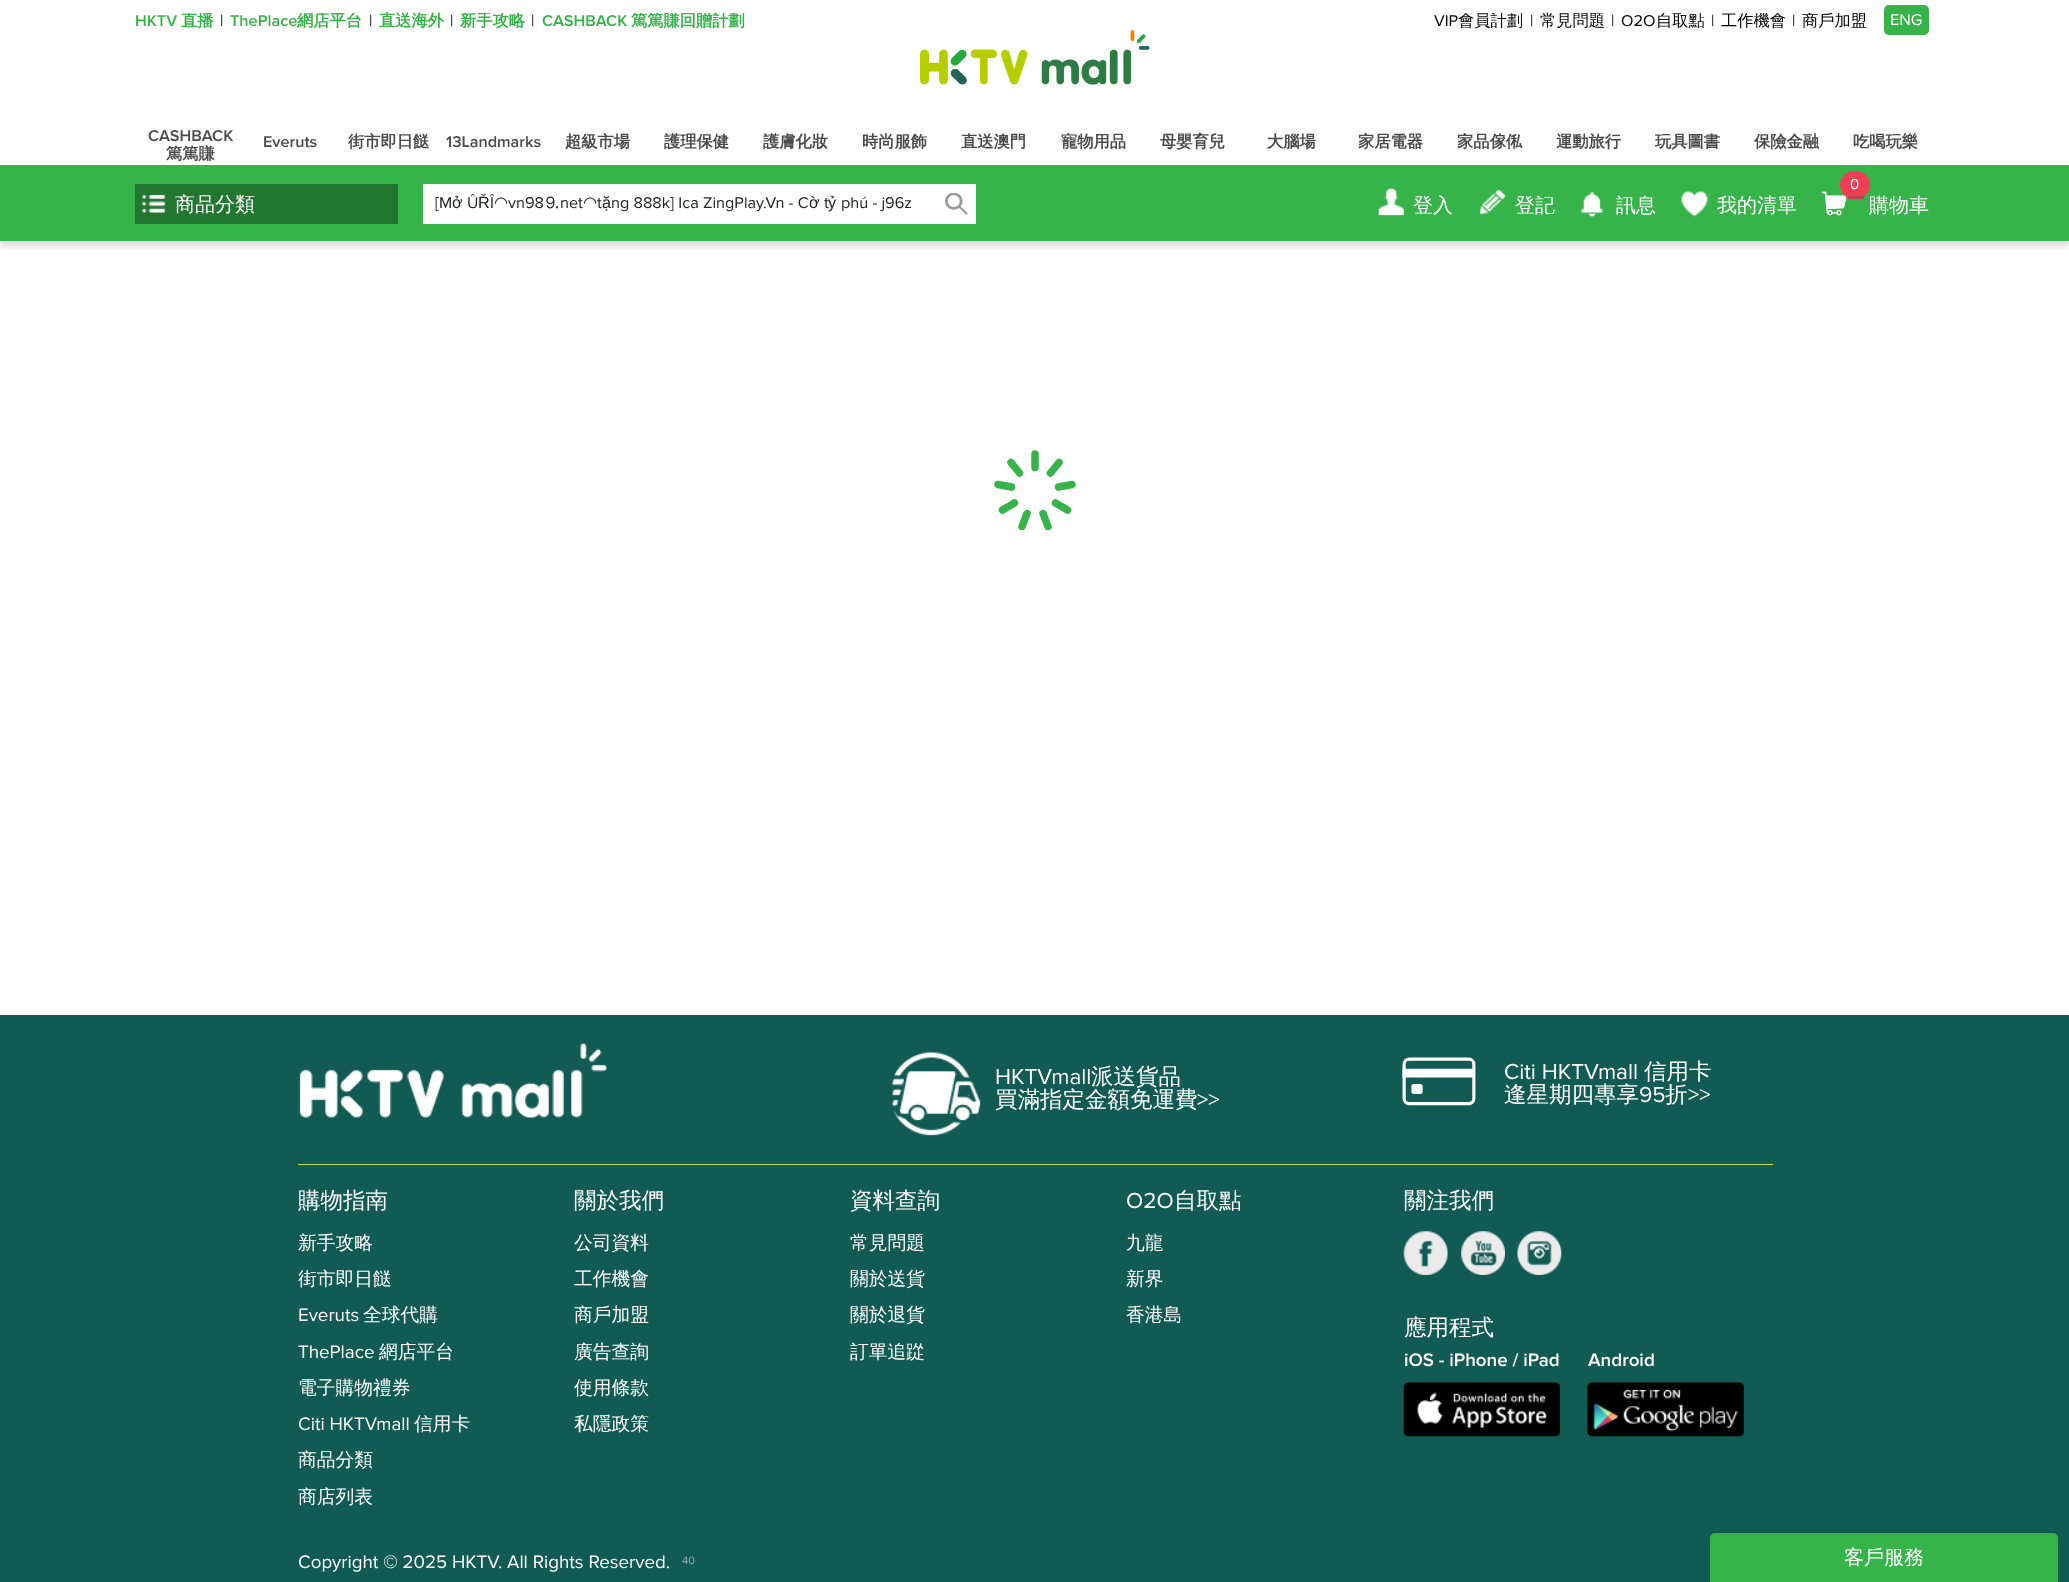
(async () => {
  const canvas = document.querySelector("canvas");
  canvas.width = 2069;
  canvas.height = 1582;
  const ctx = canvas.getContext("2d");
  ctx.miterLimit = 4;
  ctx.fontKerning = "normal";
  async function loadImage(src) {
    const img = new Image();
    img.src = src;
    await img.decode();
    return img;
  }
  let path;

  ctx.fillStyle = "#ffffff";
  ctx.fillRect(0, 0, 2069, 1582);
  ctx.save();
  ctx.beginPath();
  ctx.rect(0, 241, 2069, 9);
  ctx.clip();
  ctx.fillStyle = "rgba(51, 51, 51, 0.23)";
  ctx.filter = "blur(4px)";
  ctx.beginPath();
  ctx.rect(0, 4, 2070, 241);
  ctx.fill();
  ctx.filter = "none";
  ctx.restore();
  ctx.fillStyle = "#36b449";
  ctx.beginPath();
  ctx.roundRect(1884, 5, 45, 30, 5);
  ctx.fill();
  ctx.drawImage(await loadImage("img/1.png"), 920, 30, 230, 55);
  ctx.fillRect(0, 165, 2069, 76);
  ctx.fillStyle = "#237630";
  ctx.fillRect(135, 184, 263, 40);
  ctx.drawImage(await loadImage("img/2.png"), 142, 194, 24, 19);
  ctx.fillStyle = "#ffffff";
  ctx.fillRect(423, 184, 553, 40);
  ctx.drawImage(await loadImage("img/3.png"), 945, 193, 23, 22);
  ctx.drawImage(await loadImage("img/4.png"), 1378, 188, 26, 28);
  ctx.drawImage(await loadImage("img/5.png"), 1479, 189, 27, 25);
  ctx.drawImage(await loadImage("img/6.png"), 1581, 192, 23, 25);
  ctx.drawImage(await loadImage("img/7.png"), 1681, 191, 27, 26);
  ctx.drawImage(await loadImage("img/8.png"), 1821, 191, 26, 25);
  path = new Path2D("M1035 454V467.5M1059 462.5L1050.5 473M1072 484.5L1058.5 487");
  ctx.strokeStyle = "#36b449";
  ctx.lineWidth = 7.5;
  ctx.lineCap = "round";
  ctx.lineJoin = "round";
  ctx.stroke(path);
  path = new Path2D("M1067.5 510L1055.5 503M1048 526.5L1043 513.5M1022 526.5L1027 513.5");
  ctx.stroke(path);
  path = new Path2D("M1002.5 510L1014.5 503M998 484.5L1011.5 487M1011 462.5L1019.5 473");
  ctx.stroke(path);
  ctx.fillStyle = "#115b54";
  ctx.fillRect(0, 1015, 2069, 567);
  ctx.fillStyle = "#bddb4d";
  ctx.fillRect(298, 1164, 1475, 1);
  ctx.drawImage(await loadImage("img/9.png"), 299, 1043, 308, 75);
  ctx.drawImage(await loadImage("img/10.png"), 892, 1052, 89, 84);
  ctx.drawImage(await loadImage("img/11.png"), 1402, 1057, 74, 49);
  ctx.drawImage(await loadImage("img/12.png"), 1403, 1231, 45, 44);
  ctx.drawImage(await loadImage("img/13.png"), 1461, 1231, 44, 44);
  ctx.drawImage(await loadImage("img/14.png"), 1517, 1231, 45, 44);
  ctx.drawImage(await loadImage("img/15.png"), 1403, 1382, 157, 55);
  ctx.drawImage(await loadImage("img/16.png"), 1587, 1382, 157, 55);
  ctx.fillStyle = "#36b449";
  path = new Path2D("M1715 1533H2053C2056 1533 2058 1535 2058 1538V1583H1710V1538C1710 1535 1712 1533 1715 1533Z");
  ctx.fill(path);
  ctx.font = "600 16.25px Proxima Nova";
  ctx.fillText("HKTV", 135, 26);
  ctx.save();
  ctx.beginPath();
  ctx.rect(135, 13, 638, 17);
  ctx.clip();
  ctx.font = "bold 16.25px WenQuanYi Zen Hei";
  ctx.fillText("直播", 181, 26);
  ctx.restore();
  ctx.font = "16.25px Proxima Nova";
  ctx.fillStyle = "#000000";
  ctx.fillText("|", 220, 26);
  ctx.font = "600 16.25px Proxima Nova";
  ctx.fillStyle = "#36b449";
  ctx.fillText("ThePlace", 230, 26);
  ctx.save();
  ctx.beginPath();
  ctx.rect(135, 13, 638, 17);
  ctx.clip();
  ctx.font = "bold 16.25px WenQuanYi Zen Hei";
  ctx.fillText("網店平台", 297, 26);
  ctx.restore();
  ctx.font = "16.25px Proxima Nova";
  ctx.fillStyle = "#000000";
  ctx.fillText("|", 369, 26);
  ctx.font = "bold 16.25px WenQuanYi Zen Hei";
  ctx.fillStyle = "#36b449";
  ctx.fillText("直送海外", 379, 26);
  ctx.font = "16.25px Proxima Nova";
  ctx.fillStyle = "#000000";
  ctx.fillText("|", 450, 26);
  ctx.save();
  ctx.beginPath();
  ctx.rect(135, 13, 638, 17);
  ctx.clip();
  ctx.font = "bold 16.25px WenQuanYi Zen Hei";
  ctx.fillStyle = "#36b449";
  ctx.fillText("新手攻略", 460, 26);
  ctx.restore();
  ctx.fillText("|", 531, 26);
  ctx.font = "600 16.25px Proxima Nova";
  ctx.fillStyle = "#36b449";
  ctx.fillText("CASHBACK", 542, 26);
  ctx.save();
  ctx.beginPath();
  ctx.rect(135, 13, 638, 17);
  ctx.clip();
  ctx.font = "bold 16.25px WenQuanYi Zen Hei";
  ctx.fillText("篤篤賺回贈計劃", 631, 26);
  ctx.restore();
  ctx.font = "16.25px Proxima Nova";
  ctx.fillStyle = "#000000";
  ctx.fillText("VIP", 1434, 26);
  ctx.save();
  ctx.beginPath();
  ctx.rect(1293, 13, 575, 17);
  ctx.clip();
  ctx.font = "500 16.25px WenQuanYi Zen Hei";
  ctx.fillText("會員計劃", 1458, 26);
  ctx.restore();
  ctx.fillText("|", 1530, 26);
  ctx.font = "500 16.25px WenQuanYi Zen Hei";
  ctx.fillText("常見問題", 1540, 26);
  ctx.font = "16.25px Proxima Nova";
  ctx.fillText("|", 1611, 26);
  ctx.fillText("O2O", 1621, 26);
  ctx.font = "500 16.25px WenQuanYi Zen Hei";
  ctx.fillText("自取點", 1656, 26);
  ctx.font = "16.25px Proxima Nova";
  ctx.fillText("|", 1711, 26);
  ctx.save();
  ctx.beginPath();
  ctx.rect(1293, 13, 575, 17);
  ctx.clip();
  ctx.font = "500 16.25px WenQuanYi Zen Hei";
  ctx.fillText("工作機會", 1721, 26);
  ctx.restore();
  ctx.fillText("|", 1792, 26);
  ctx.save();
  ctx.beginPath();
  ctx.rect(1293, 13, 575, 17);
  ctx.clip();
  ctx.font = "500 16.25px WenQuanYi Zen Hei";
  ctx.fillText("商戶加盟", 1802, 26);
  ctx.restore();
  ctx.fillStyle = "#ffffff";
  ctx.fillText("ENG", 1890, 25);
  ctx.font = "600 16.25px Proxima Nova";
  ctx.fillStyle = "#4a4a4a";
  ctx.fillText("CASHBACK", 148, 141);
  ctx.font = "bold 16.25px WenQuanYi Zen Hei";
  ctx.fillText("篤篤賺", 166, 159);
  ctx.font = "600 16.25px Proxima Nova";
  ctx.fillText("Everuts", 263, 147);
  ctx.font = "bold 16.25px WenQuanYi Zen Hei";
  ctx.fillText("街市即日餸", 348, 147);
  ctx.font = "600 16.25px Proxima Nova";
  ctx.fillText("13Landmarks", 446, 147);
  ctx.font = "bold 16.25px WenQuanYi Zen Hei";
  for (const [text, x, y] of [
    ["超級市場", 565, 147],
    ["護理保健", 664, 147],
    ["護膚化妝", 763, 147],
    ["時尚服飾", 862, 147],
    ["直送澳門", 961, 147],
    ["寵物用品", 1061, 147],
    ["母嬰育兒", 1160, 147],
    ["大腦場", 1267, 147],
    ["家居電器", 1358, 147],
    ["家品傢俬", 1457, 147],
    ["運動旅行", 1556, 147],
    ["玩具圖書", 1655, 147],
    ["保險金融", 1754, 147],
    ["吃喝玩樂", 1853, 147],
  ]) {
    ctx.fillText(text, x, y);
  }
  ctx.font = "500 20px WenQuanYi Zen Hei";
  ctx.fillStyle = "#ffffff";
  ctx.fillText("商品分類", 175, 211);
  ctx.font = "16.25px Proxima Nova";
  ctx.fillStyle = "#222222";
  ctx.fillText("[M", 435, 208);
  ctx.font = "16.25px Liberation Sans";
  ctx.fillText("ở", 452, 208);
  ctx.font = "16.25px Proxima Nova";
  ctx.fillText("Û", 467, 208);
  ctx.font = "16.25px Liberation Sans";
  ctx.fillText("Ř", 478, 208);
  ctx.font = "16.25px Proxima Nova";
  ctx.fillText("Î", 490, 208);
  ctx.font = "16.25px DejaVu Sans";
  ctx.fillText("◠", 494, 208);
  ctx.font = "16.25px Proxima Nova";
  ctx.fillText("vn98", 508, 208);
  ctx.font = "500 16.25px WenQuanYi Zen Hei";
  ctx.fillText("⒐", 544, 208);
  ctx.font = "16.25px Proxima Nova";
  ctx.fillText("net", 560, 208);
  ctx.font = "16.25px DejaVu Sans";
  ctx.fillText("◠", 583, 208);
  ctx.font = "16.25px Proxima Nova";
  ctx.fillText("t", 597, 208);
  ctx.font = "16.25px Liberation Sans";
  ctx.fillText("ặ", 602, 208);
  ctx.font = "16.25px Proxima Nova";
  ctx.fillText("ng 888k] Ica ZingPlay.Vn - C", 611, 208);
  ctx.font = "16.25px Liberation Sans";
  ctx.fillText("ờ", 809, 208);
  ctx.font = "16.25px Proxima Nova";
  ctx.fillText("t", 824, 208);
  ctx.font = "16.25px Liberation Sans";
  ctx.fillText("ỷ", 828, 208);
  ctx.font = "16.25px Proxima Nova";
  ctx.fillText("phú - j96z", 841, 208);
  ctx.font = "500 20px WenQuanYi Zen Hei";
  ctx.fillStyle = "#ffffff";
  for (const [text, x, y] of [
    ["登入", 1413, 212],
    ["登記", 1515, 212],
    ["訊息", 1616, 212],
    ["我的清單", 1717, 212],
    ["購物車", 1869, 212],
  ]) {
    ctx.fillText(text, x, y);
  }
  ctx.fillStyle = "#ee4054";
  ctx.beginPath();
  ctx.roundRect(1840, 171, 30, 28, 14);
  ctx.fill();
  ctx.font = "15px Proxima Nova";
  ctx.fillStyle = "#ffffff";
  ctx.fillText("0", 1850, 189);
  ctx.fillStyle = "#c04054";
  ctx.fillRect(1848, 196, 16, 3);
  ctx.font = "22.5px Proxima Nova";
  ctx.fillStyle = "#ffffff";
  ctx.fillText("HKTVmall", 995, 1084);
  ctx.font = "500 22.5px WenQuanYi Zen Hei";
  ctx.fillText("派送貨品", 1091, 1084);
  ctx.fillText("買滿指定金額免運費", 995, 1107);
  ctx.font = "22.5px Proxima Nova";
  ctx.fillText(">>", 1197, 1107);
  ctx.fillText("Citi HKTVmall", 1504, 1079);
  ctx.font = "500 22.5px WenQuanYi Zen Hei";
  ctx.fillText("信用卡", 1644, 1079);
  ctx.fillText("逢星期四專享", 1504, 1102);
  ctx.font = "22.5px Proxima Nova";
  ctx.fillText("95", 1639, 1102);
  ctx.font = "500 22.5px WenQuanYi Zen Hei";
  ctx.fillText("折", 1665, 1102);
  ctx.font = "22.5px Proxima Nova";
  ctx.fillText(">>", 1688, 1102);
  ctx.font = "500 22.5px WenQuanYi Zen Hei";
  ctx.fillText("購物指南", 298, 1208);
  ctx.font = "500 18.75px WenQuanYi Zen Hei";
  ctx.fillText("新手攻略", 298, 1249);
  ctx.fillText("街市即日餸", 298, 1285);
  ctx.font = "18.75px Proxima Nova";
  ctx.fillText("Everuts", 298, 1321);
  ctx.font = "500 18.75px WenQuanYi Zen Hei";
  ctx.fillText("全球代購", 363, 1321);
  ctx.font = "18.75px Proxima Nova";
  ctx.fillText("ThePlace", 298, 1358);
  ctx.font = "500 18.75px WenQuanYi Zen Hei";
  ctx.fillText("網店平台", 379, 1358);
  ctx.fillText("電子購物禮券", 298, 1394);
  ctx.font = "18.75px Proxima Nova";
  ctx.fillText("Citi HKTVmall", 298, 1430);
  ctx.font = "500 18.75px WenQuanYi Zen Hei";
  for (const [text, x, y] of [
    ["信用卡", 414, 1430],
    ["商品分類", 298, 1466],
    ["商店列表", 298, 1503],
  ]) {
    ctx.fillText(text, x, y);
  }
  ctx.font = "500 22.5px WenQuanYi Zen Hei";
  ctx.fillText("關於我們", 574, 1208);
  ctx.font = "500 18.75px WenQuanYi Zen Hei";
  for (const [text, x, y] of [
    ["公司資料", 574, 1249],
    ["工作機會", 574, 1285],
    ["商戶加盟", 574, 1321],
    ["廣告查詢", 574, 1358],
    ["使用條款", 574, 1394],
    ["私隱政策", 574, 1430],
  ]) {
    ctx.fillText(text, x, y);
  }
  ctx.font = "500 22.5px WenQuanYi Zen Hei";
  ctx.fillText("資料查詢", 850, 1208);
  ctx.font = "500 18.75px WenQuanYi Zen Hei";
  for (const [text, x, y] of [
    ["常見問題", 850, 1249],
    ["關於送貨", 850, 1285],
    ["關於退貨", 850, 1321],
    ["訂單追踨", 850, 1358],
  ]) {
    ctx.fillText(text, x, y);
  }
  ctx.font = "22.5px Proxima Nova";
  ctx.fillText("O2O", 1126, 1208);
  ctx.font = "500 22.5px WenQuanYi Zen Hei";
  ctx.fillText("自取點", 1174, 1208);
  ctx.font = "500 18.75px WenQuanYi Zen Hei";
  for (const [text, x, y] of [
    ["九龍", 1126, 1249],
    ["新界", 1126, 1285],
    ["香港島", 1126, 1321],
  ]) {
    ctx.fillText(text, x, y);
  }
  ctx.font = "500 22.5px WenQuanYi Zen Hei";
  ctx.fillText("關注我們", 1404, 1208);
  ctx.fillText("應用程式", 1404, 1335);
  ctx.font = "600 18.75px Proxima Nova";
  ctx.fillText("iOS - iPhone / iPad", 1404, 1366);
  ctx.fillText("Android", 1588, 1366);
  ctx.font = "18.75px Proxima Nova";
  ctx.fillText("Copyright © 2025 HKTV. All Rights Reserved.", 298, 1568);
  ctx.font = "11px Proxima Nova";
  ctx.fillStyle = "#a9a9a9";
  ctx.fillText("40", 682, 1564);
  ctx.font = "500 20px WenQuanYi Zen Hei";
  ctx.fillStyle = "#ffffff";
  ctx.fillText("客戶服務", 1844, 1564);
})();
